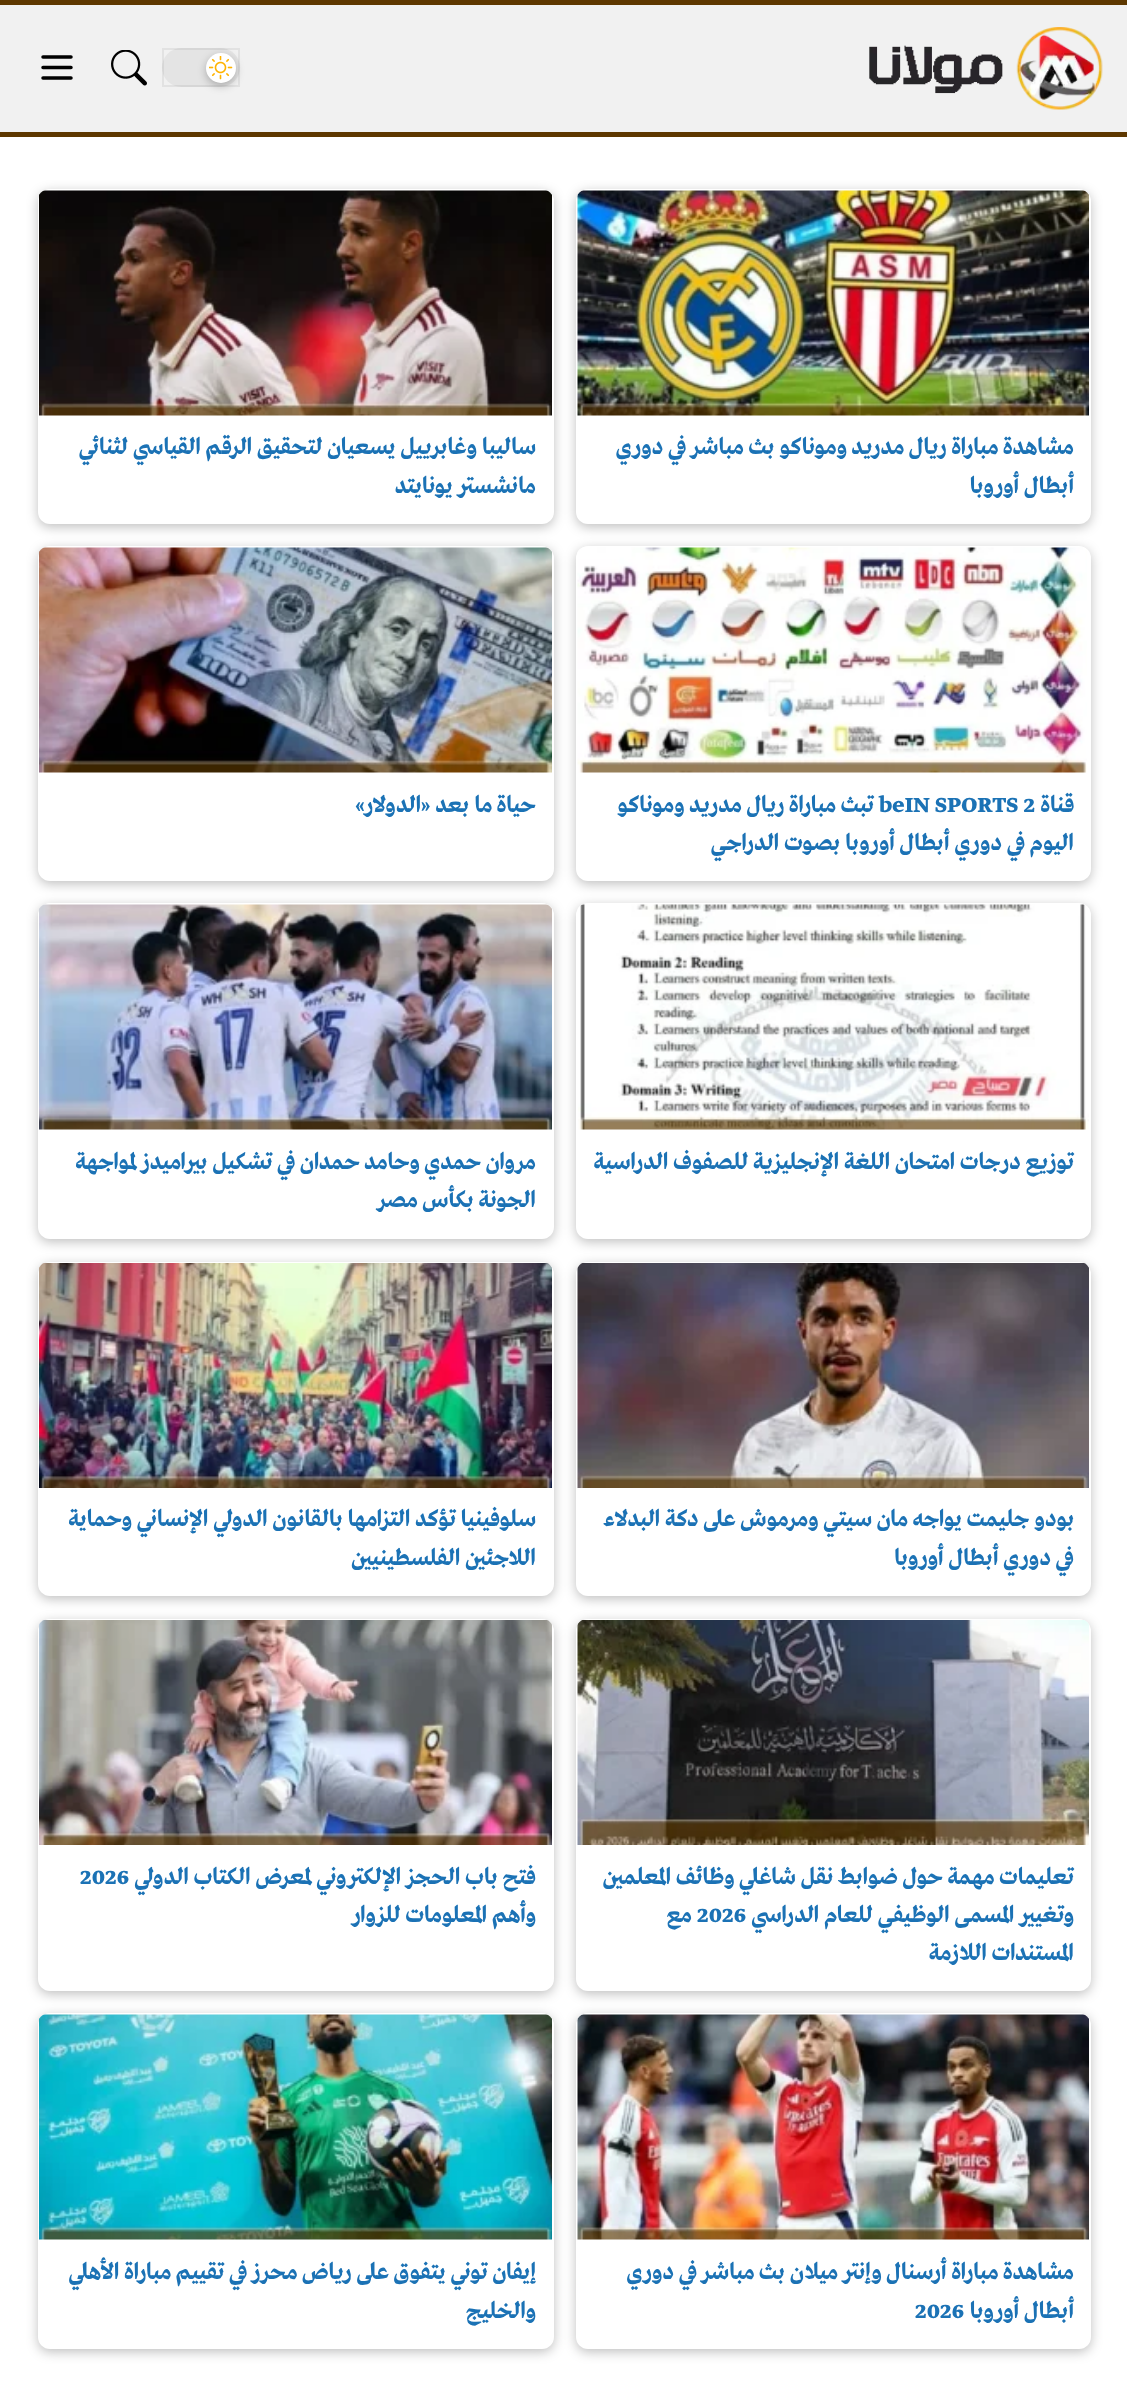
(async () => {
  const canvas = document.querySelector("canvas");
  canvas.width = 1127;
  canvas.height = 2388;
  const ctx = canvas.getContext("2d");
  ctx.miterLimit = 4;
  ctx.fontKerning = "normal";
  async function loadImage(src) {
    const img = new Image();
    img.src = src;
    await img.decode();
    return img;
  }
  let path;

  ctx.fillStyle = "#ffffff";
  ctx.fillRect(0, 0, 1127, 2388);
  for (const [x, y, w, h, color] of [
    [0, 5, 1127, 127, "#f1f1f1"],
    [0, 0, 1127, 5, "#5e3800"],
    [0, 132, 1127, 5, "#5e3800"],
  ]) {
    ctx.fillStyle = color;
    ctx.fillRect(x, y, w, h);
  }
  ctx.drawImage(await loadImage("img/1.png"), 869, 27, 234, 83);
  ctx.fillStyle = "#e4e4e4";
  ctx.beginPath();
  ctx.roundRect(162, 48, 78, 39, 19.5);
  ctx.fill();
  ctx.strokeStyle = "rgba(0, 0, 0, 0.06)";
  ctx.lineWidth = 2;
  ctx.strokeRect(163, 49, 76, 37);
  ctx.fillStyle = "rgba(0, 0, 0, 0.25)";
  ctx.filter = "blur(4px)";
  ctx.beginPath();
  ctx.roundRect(206, 56, 30, 30, 15);
  ctx.fill();
  ctx.filter = "none";
  ctx.fillStyle = "#ffffff";
  ctx.beginPath();
  ctx.arc(221, 68, 15, 0, Math.PI * 2);
  ctx.fill();
  ctx.drawImage(await loadImage("img/2.png"), 209, 56, 24, 24);
  ctx.drawImage(await loadImage("img/3.png"), 111, 50, 36, 36);
  path = new Path2D("M43 57H71M43 67.5H71M43 78H71");
  ctx.strokeStyle = "#000000";
  ctx.lineWidth = 3.5;
  ctx.lineCap = "round";
  ctx.lineJoin = "round";
  ctx.stroke(path);
  ctx.fillStyle = "rgba(0, 0, 0, 0.25)";
  ctx.filter = "blur(6px)";
  ctx.beginPath();
  ctx.roundRect(576, 192, 515, 335, 12);
  ctx.fill();
  ctx.filter = "none";
  ctx.fillStyle = "#ffffff";
  ctx.beginPath();
  ctx.roundRect(576, 189, 515, 335, 12);
  ctx.fill();
  ctx.drawImage(await loadImage("img/4.png"), 577, 190, 512, 226);
  ctx.fillStyle = "rgba(0, 0, 0, 0.25)";
  ctx.filter = "blur(6px)";
  ctx.beginPath();
  ctx.roundRect(38, 192, 516, 335, 12);
  ctx.fill();
  ctx.filter = "none";
  ctx.fillStyle = "#ffffff";
  ctx.beginPath();
  ctx.roundRect(38, 189, 516, 335, 12);
  ctx.fill();
  ctx.drawImage(await loadImage("img/5.png"), 39, 190, 513, 226);
  ctx.fillStyle = "rgba(0, 0, 0, 0.25)";
  ctx.filter = "blur(6px)";
  ctx.beginPath();
  ctx.roundRect(576, 549, 515, 335, 12);
  ctx.fill();
  ctx.filter = "none";
  ctx.fillStyle = "#ffffff";
  ctx.beginPath();
  ctx.roundRect(576, 546, 515, 335, 12);
  ctx.fill();
  ctx.drawImage(await loadImage("img/6.png"), 577, 547, 510, 226);
  ctx.fillStyle = "rgba(0, 0, 0, 0.25)";
  ctx.filter = "blur(6px)";
  ctx.beginPath();
  ctx.roundRect(38, 549, 516, 335, 12);
  ctx.fill();
  ctx.filter = "none";
  ctx.fillStyle = "#ffffff";
  ctx.beginPath();
  ctx.roundRect(38, 546, 516, 335, 12);
  ctx.fill();
  ctx.drawImage(await loadImage("img/7.png"), 39, 547, 513, 226);
  ctx.fillStyle = "rgba(0, 0, 0, 0.25)";
  ctx.filter = "blur(6px)";
  ctx.beginPath();
  ctx.roundRect(576, 906, 515, 336, 12);
  ctx.fill();
  ctx.filter = "none";
  ctx.fillStyle = "#ffffff";
  ctx.beginPath();
  ctx.roundRect(576, 903, 515, 336, 12);
  ctx.fill();
  ctx.drawImage(await loadImage("img/8.png"), 578, 904, 511, 226);
  ctx.fillStyle = "rgba(0, 0, 0, 0.25)";
  ctx.filter = "blur(6px)";
  ctx.beginPath();
  ctx.roundRect(38, 906, 516, 336, 12);
  ctx.fill();
  ctx.filter = "none";
  ctx.fillStyle = "#ffffff";
  ctx.beginPath();
  ctx.roundRect(38, 903, 516, 336, 12);
  ctx.fill();
  ctx.drawImage(await loadImage("img/9.png"), 39, 904, 513, 226);
  ctx.fillStyle = "rgba(0, 0, 0, 0.25)";
  ctx.filter = "blur(6px)";
  ctx.beginPath();
  ctx.roundRect(576, 1265, 515, 334, 12);
  ctx.fill();
  ctx.filter = "none";
  ctx.fillStyle = "#ffffff";
  ctx.beginPath();
  ctx.roundRect(576, 1262, 515, 334, 12);
  ctx.fill();
  ctx.drawImage(await loadImage("img/10.png"), 577, 1263, 512, 225);
  ctx.fillStyle = "rgba(0, 0, 0, 0.25)";
  ctx.filter = "blur(6px)";
  ctx.beginPath();
  ctx.roundRect(38, 1265, 516, 334, 12);
  ctx.fill();
  ctx.filter = "none";
  ctx.fillStyle = "#ffffff";
  ctx.beginPath();
  ctx.roundRect(38, 1262, 516, 334, 12);
  ctx.fill();
  ctx.drawImage(await loadImage("img/11.png"), 39, 1263, 513, 225);
  ctx.fillStyle = "rgba(0, 0, 0, 0.25)";
  ctx.filter = "blur(6px)";
  ctx.beginPath();
  ctx.roundRect(576, 1622, 515, 372, 12);
  ctx.fill();
  ctx.filter = "none";
  ctx.fillStyle = "#ffffff";
  ctx.beginPath();
  ctx.roundRect(576, 1619, 515, 372, 12);
  ctx.fill();
  ctx.drawImage(await loadImage("img/12.png"), 577, 1620, 512, 225);
  ctx.fillStyle = "rgba(0, 0, 0, 0.25)";
  ctx.filter = "blur(6px)";
  ctx.beginPath();
  ctx.roundRect(38, 1622, 516, 372, 12);
  ctx.fill();
  ctx.filter = "none";
  ctx.fillStyle = "#ffffff";
  ctx.beginPath();
  ctx.roundRect(38, 1619, 516, 372, 12);
  ctx.fill();
  ctx.drawImage(await loadImage("img/13.png"), 39, 1620, 513, 225);
  ctx.fillStyle = "rgba(0, 0, 0, 0.25)";
  ctx.filter = "blur(6px)";
  ctx.beginPath();
  ctx.roundRect(576, 2016, 515, 336, 12);
  ctx.fill();
  ctx.filter = "none";
  ctx.fillStyle = "#ffffff";
  ctx.beginPath();
  ctx.roundRect(576, 2013, 515, 336, 12);
  ctx.fill();
  ctx.drawImage(await loadImage("img/14.png"), 577, 2014, 512, 226);
  ctx.fillStyle = "rgba(0, 0, 0, 0.25)";
  ctx.filter = "blur(6px)";
  ctx.beginPath();
  ctx.roundRect(38, 2016, 516, 336, 12);
  ctx.fill();
  ctx.filter = "none";
  ctx.fillStyle = "#ffffff";
  ctx.beginPath();
  ctx.roundRect(38, 2013, 516, 336, 12);
  ctx.fill();
  ctx.drawImage(await loadImage("img/15.png"), 39, 2014, 513, 226);
  ctx.direction = "rtl";
  ctx.font = "bold 24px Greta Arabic";
  ctx.fillStyle = "#1b72b5";
  for (const [text, x, y] of [
    ["مشاهدة مباراة ريال مدريد وموناكو بث مباشر في دوري", 1074, 454],
    ["أبطال أوروبا", 1074, 493],
    ["ساليبا وغابرييل يسعيان لتحقيق الرقم القياسي لثنائي", 536, 454],
    ["مانشستر يونايتد", 536, 493],
    ["قناة", 1074, 812],
  ]) {
    ctx.fillText(text, x, y);
  }
  ctx.direction = "ltr";
  ctx.fillText("beIN SPORTS 2", 879, 812);
  ctx.direction = "rtl";
  for (const [text, x, y] of [
    ["تبث مباراة ريال مدريد وموناكو", 874, 812],
    ["اليوم في دوري أبطال أوروبا بصوت الدراجي", 1074, 850],
    ["حياة ما بعد «الدولار»", 536, 812],
    ["توزيع درجات امتحان اللغة الإنجليزية للصفوف الدراسية", 1074, 1169],
    ["مروان حمدي وحامد حمدان في تشكيل بيراميدز لمواجهة", 536, 1169],
    ["الجونة بكأس مصر", 536, 1207],
    ["بودو جليمت يواجه مان سيتي ومرموش على دكة البدلاء", 1074, 1526],
    ["في دوري أبطال أوروبا", 1074, 1565],
    ["سلوفينيا تؤكد التزامها بالقانون الدولي الإنساني وحماية", 536, 1526],
    ["اللاجئين الفلسطينيين", 536, 1565],
    ["تعليمات مهمة حول ضوابط نقل شاغلي وظائف المعلمين", 1074, 1884],
    ["وتغيير المسمى الوظيفي للعام الدراسي", 1074, 1922],
  ]) {
    ctx.fillText(text, x, y);
  }
  ctx.direction = "ltr";
  ctx.fillText("2026", 697, 1922);
  ctx.direction = "rtl";
  for (const [text, x, y] of [
    ["مع", 692, 1922],
    ["المستندات اللازمة", 1074, 1960],
    ["فتح باب الحجز الإلكتروني لمعرض الكتاب الدولي", 536, 1884],
  ]) {
    ctx.fillText(text, x, y);
  }
  ctx.direction = "ltr";
  ctx.fillText("2026", 80, 1884);
  ctx.direction = "rtl";
  for (const [text, x, y] of [
    ["وأهم المعلومات للزوار", 536, 1922],
    ["مشاهدة مباراة أرسنال وإنتر ميلان بث مباشر في دوري", 1074, 2279],
    ["أبطال أوروبا", 1074, 2318],
  ]) {
    ctx.fillText(text, x, y);
  }
  ctx.direction = "ltr";
  ctx.fillText("2026", 915, 2318);
  ctx.direction = "rtl";
  ctx.fillText("إيفان توني يتفوق على رياض محرز في تقييم مباراة الأهلي", 536, 2279);
  ctx.fillText("والخليج", 536, 2318);
})();
